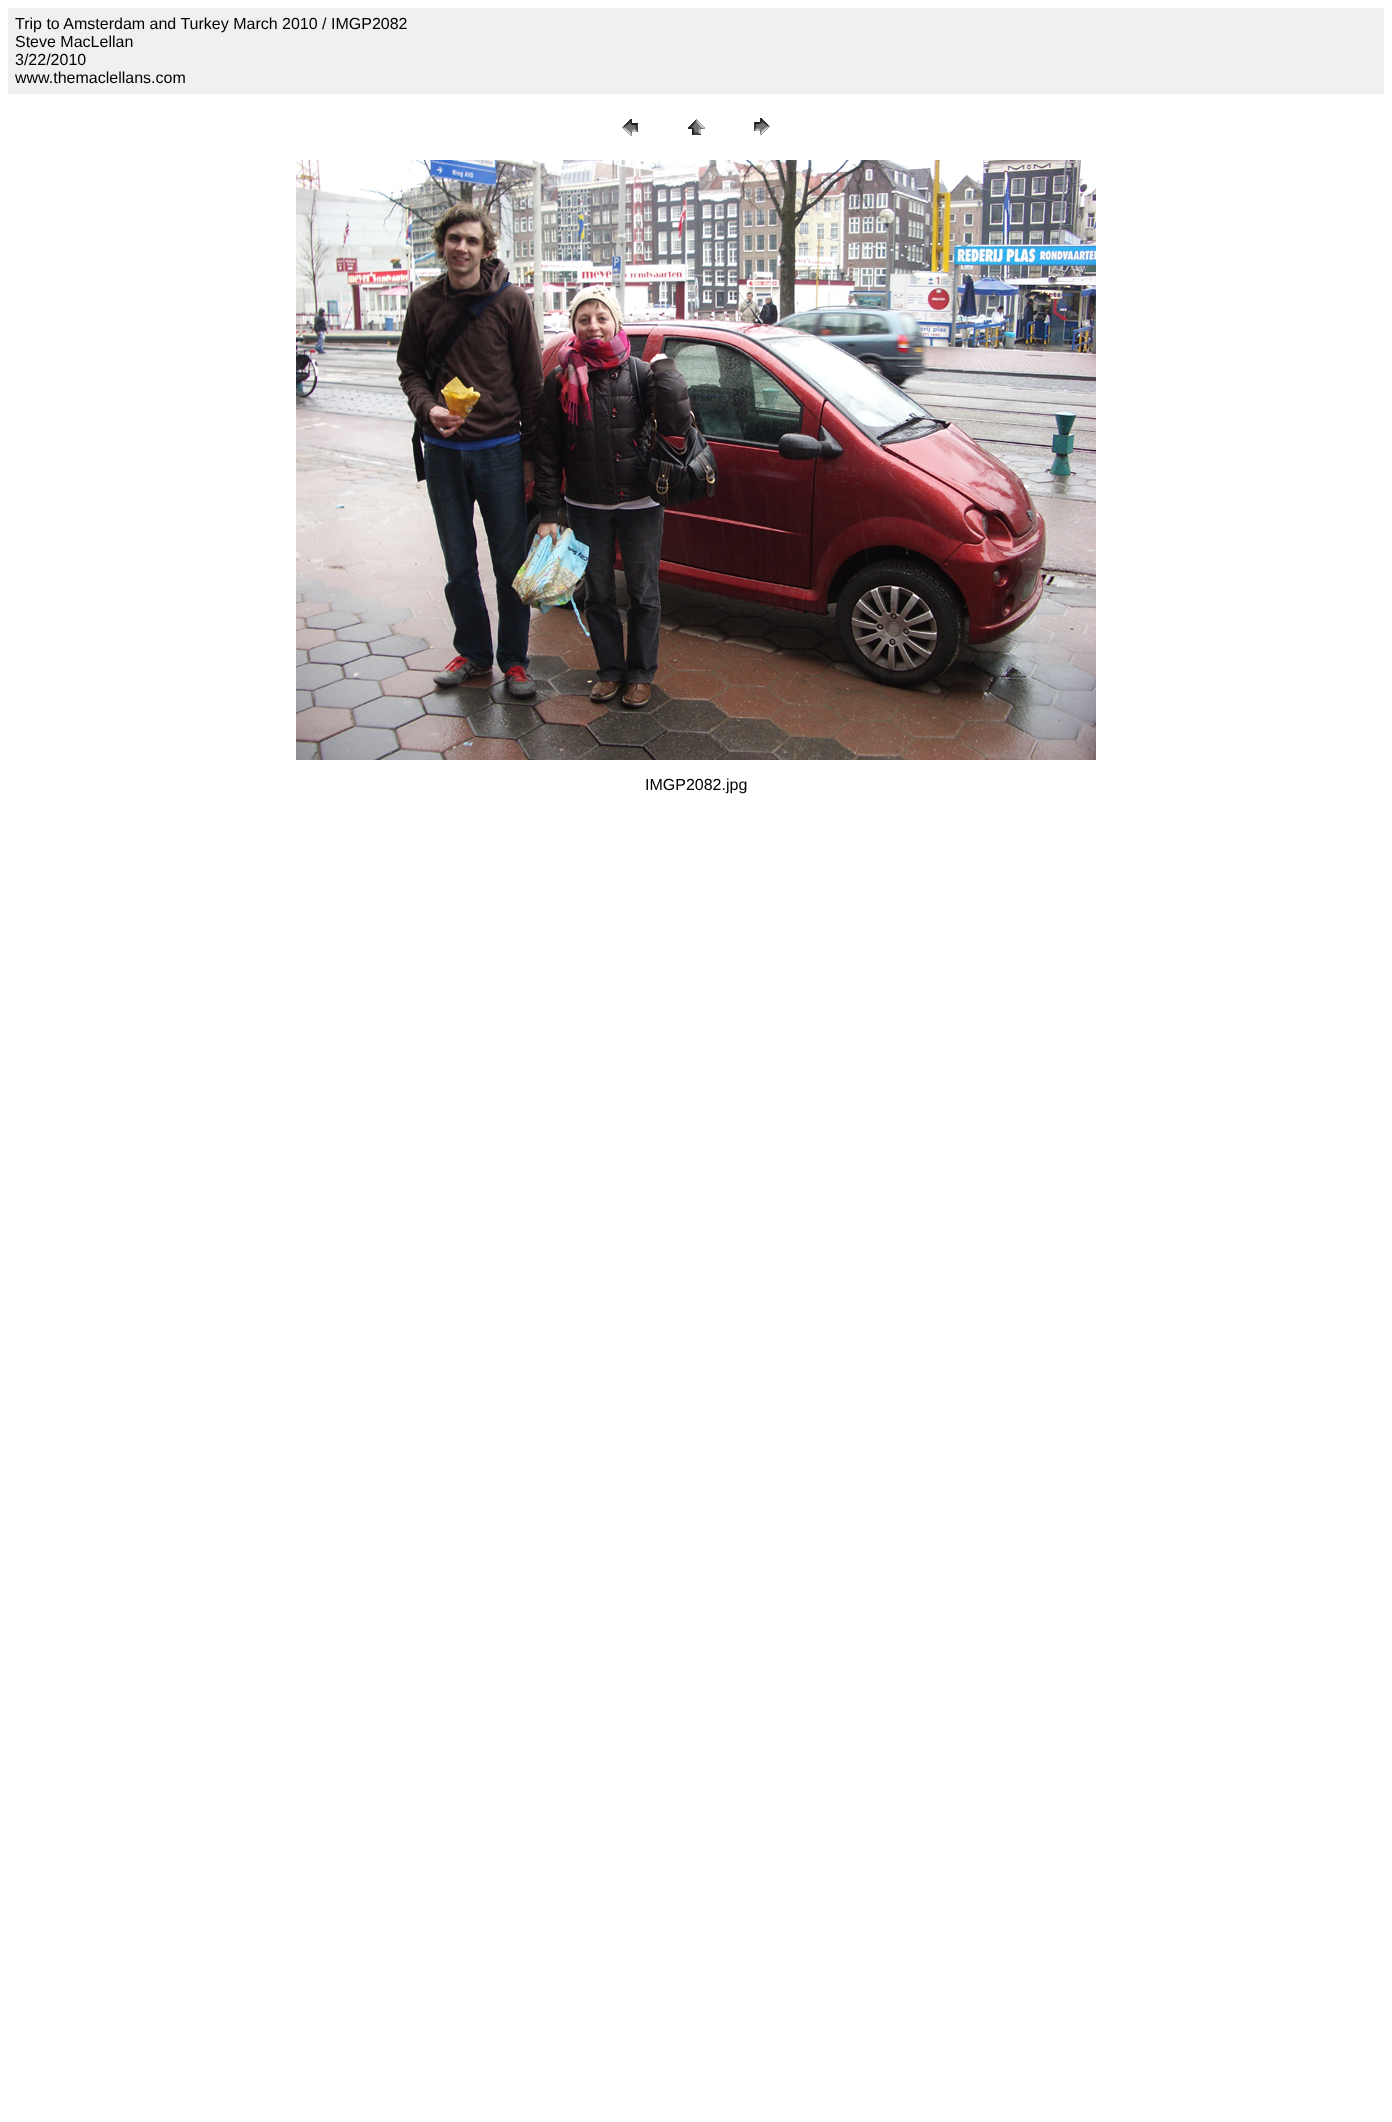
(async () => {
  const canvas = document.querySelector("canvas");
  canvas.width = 1392;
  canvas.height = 2122;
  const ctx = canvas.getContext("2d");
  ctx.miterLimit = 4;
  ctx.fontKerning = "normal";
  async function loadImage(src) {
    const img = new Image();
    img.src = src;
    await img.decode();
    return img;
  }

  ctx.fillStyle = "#ffffff";
  ctx.fillRect(0, 0, 1392, 2122);
  ctx.fillStyle = "#f0f0f0";
  ctx.fillRect(8, 8, 1376, 86);
  ctx.drawImage(await loadImage("img/1.png"), 622, 119, 16, 17);
  ctx.drawImage(await loadImage("img/2.png"), 688, 119, 17, 16);
  ctx.drawImage(await loadImage("img/3.png"), 754, 118, 16, 17);
  ctx.drawImage(await loadImage("img/4.png"), 296, 160, 800, 600);
  ctx.font = "16px Liberation Sans";
  ctx.fillStyle = "#000000";
  for (const [text, x, y] of [
    ["Trip to Amsterdam and Turkey March 2010 / IMGP2082", 15, 29],
    ["Steve MacLellan", 15, 47],
    ["3/22/2010", 15, 65],
    ["www.themaclellans.com", 15, 83],
    ["IMGP2082.jpg", 645, 790],
  ]) {
    ctx.fillText(text, x, y);
  }
})();
